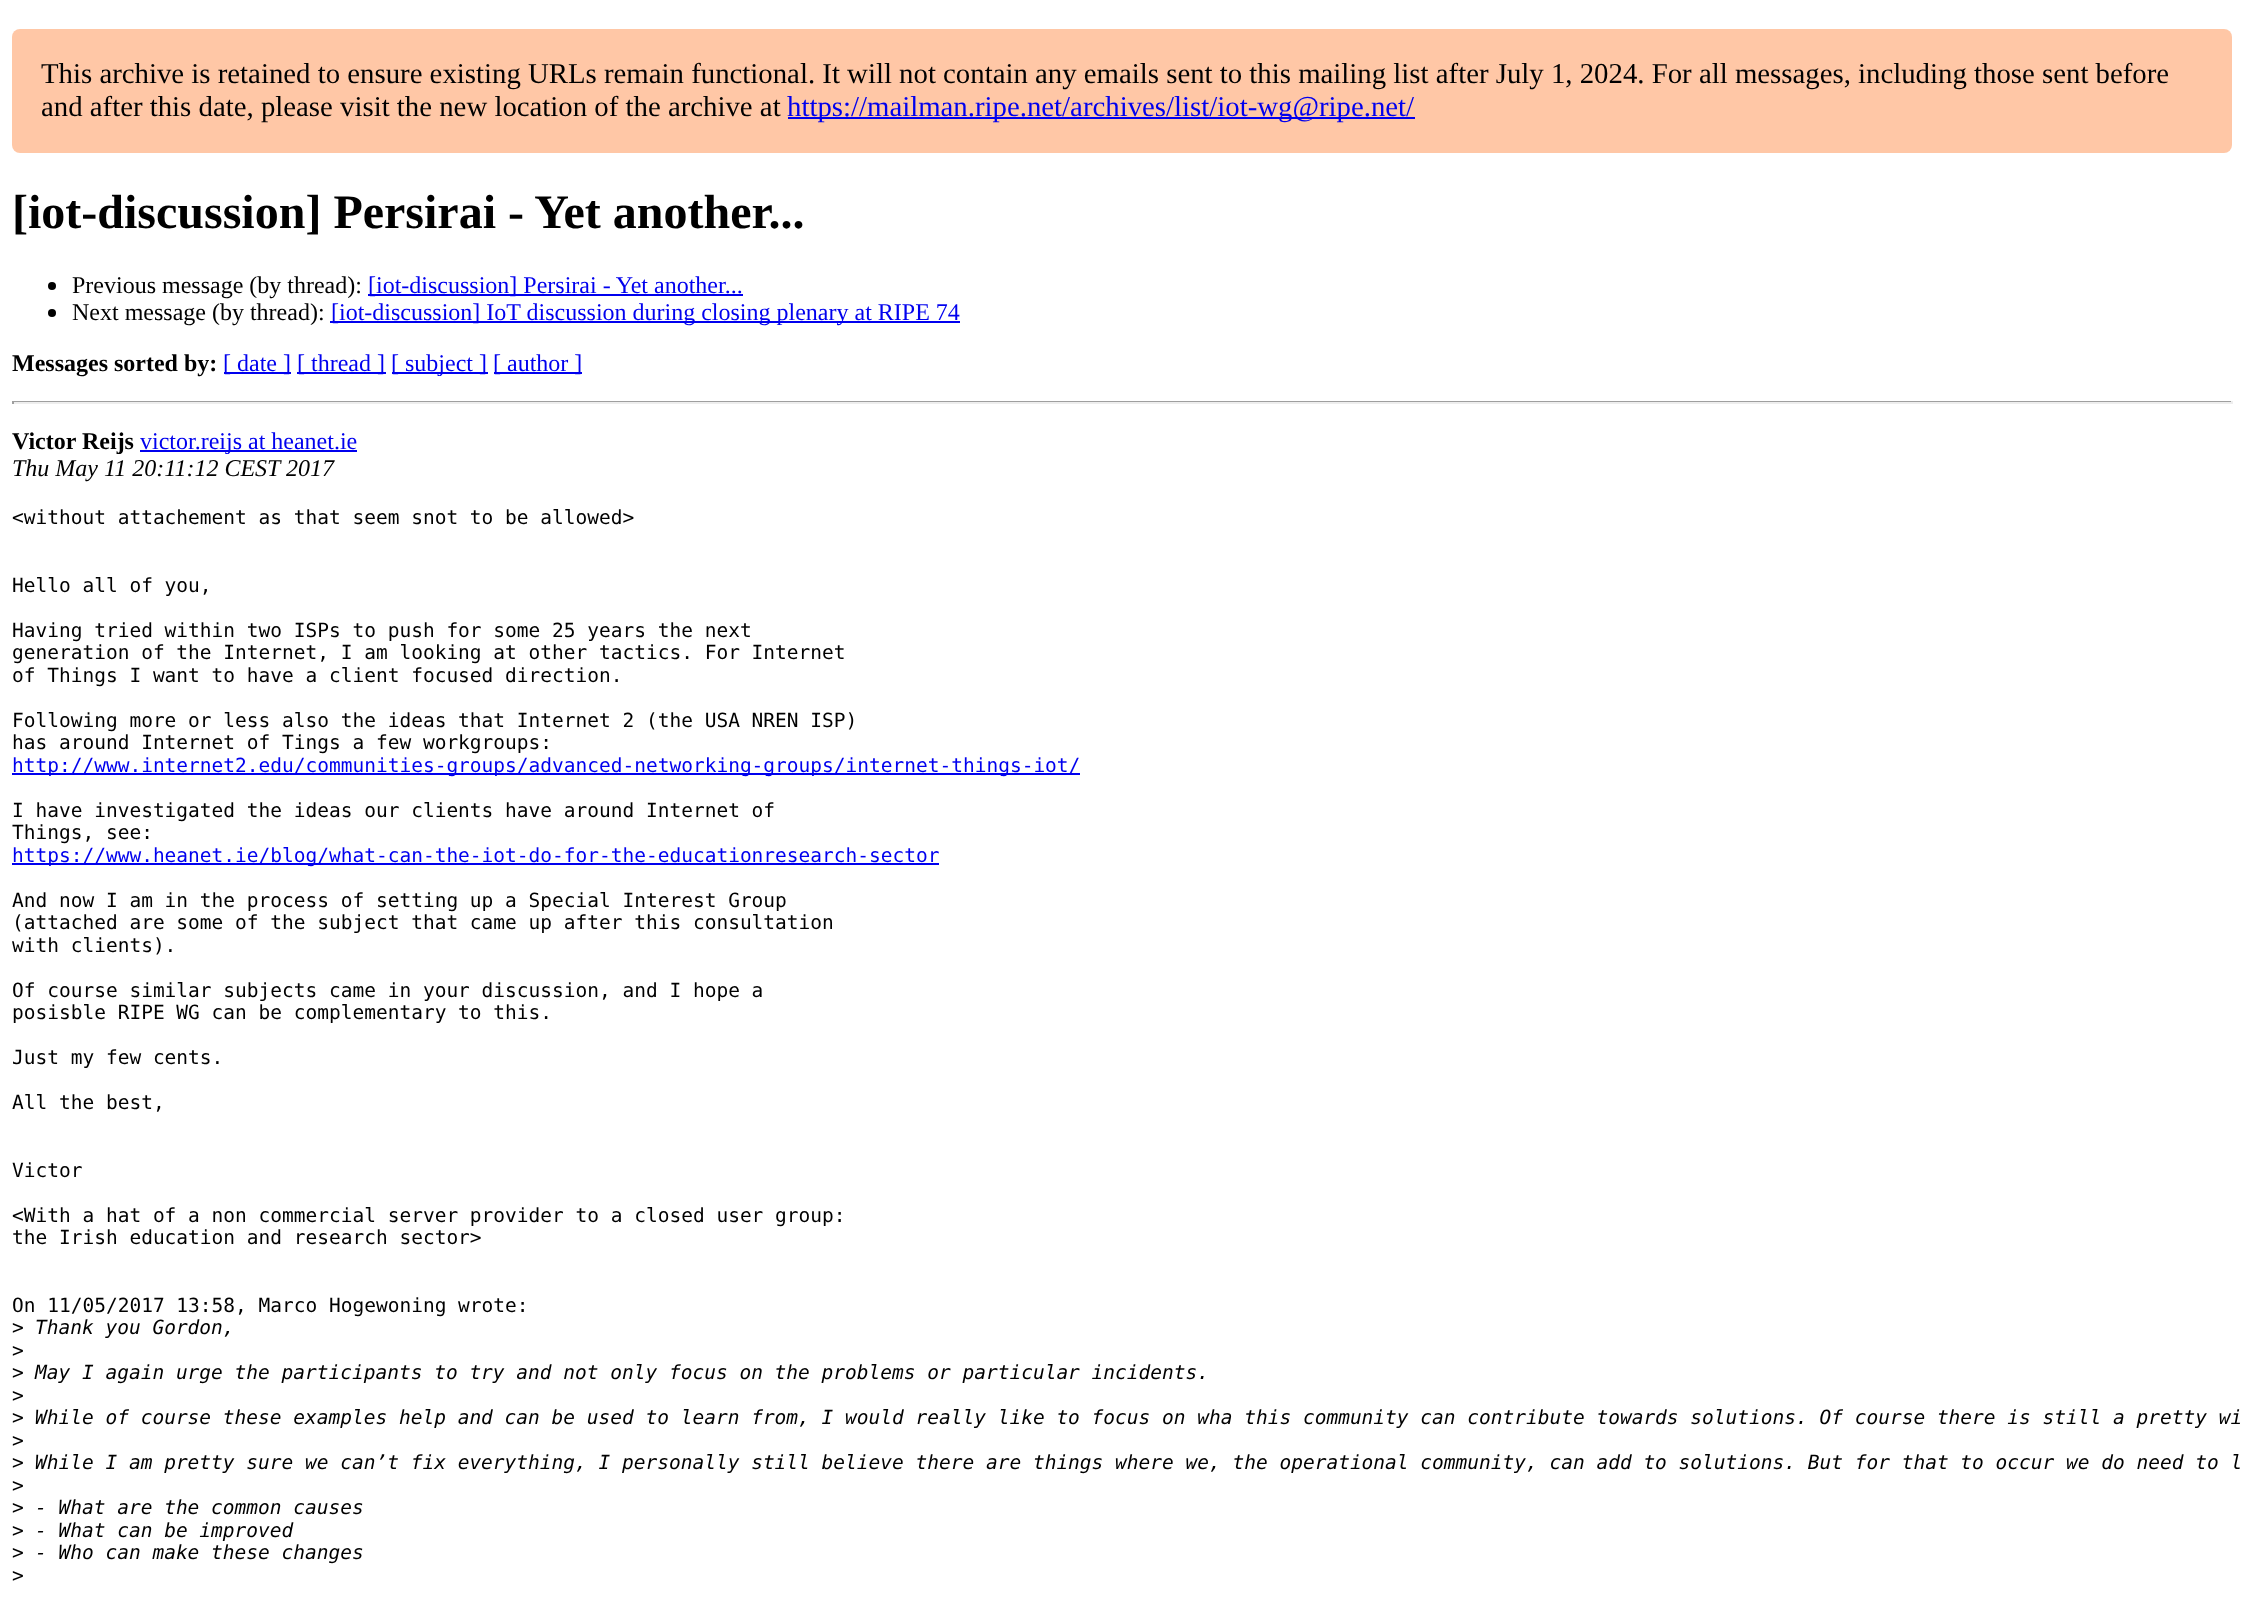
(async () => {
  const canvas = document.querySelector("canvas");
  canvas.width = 2243;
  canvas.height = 1597;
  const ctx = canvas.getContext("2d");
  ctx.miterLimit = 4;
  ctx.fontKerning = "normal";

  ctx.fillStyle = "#ffffff";
  ctx.fillRect(0, 0, 2243, 1597);
  ctx.fillStyle = "#ffc7a6";
  ctx.beginPath();
  ctx.roundRect(12, 29, 2220, 124, 8);
  ctx.fill();
  ctx.fillStyle = "#0000ee";
  ctx.fillRect(788, 117, 627, 2);
  ctx.fillStyle = "#000000";
  ctx.beginPath();
  ctx.arc(52, 286, 4, 0, Math.PI * 2);
  ctx.fill();
  ctx.fillStyle = "#0000ee";
  ctx.fillRect(368, 294, 375, 2);
  ctx.fillStyle = "#000000";
  ctx.beginPath();
  ctx.arc(52, 313, 4, 0, Math.PI * 2);
  ctx.fill();
  for (const [x, y, w, h, color] of [
    [330, 321, 630, 2, "#0000ee"],
    [224, 372, 67, 2, "#0000ee"],
    [297, 372, 89, 2, "#0000ee"],
    [392, 372, 96, 2, "#0000ee"],
    [494, 372, 88, 2, "#0000ee"],
    [12, 401, 2220, 1, "#9f9f9f"],
    [2231, 401, 2, 3, "#eeeeee"],
    [12, 402, 2220, 2, "#eeeeee"],
    [12, 401, 2, 3, "#9f9f9f"],
    [140, 450, 217, 2, "#0000ee"],
    [12, 773, 1068, 2, "#0000ee"],
    [12, 863, 927, 2, "#0000ee"],
  ]) {
    ctx.fillStyle = color;
    ctx.fillRect(x, y, w, h);
  }
  ctx.font = "28.8px Liberation Serif";
  ctx.fillStyle = "#000000";
  ctx.fillText("This archive is retained to ensure existing URLs remain functional. It will not contain any emails sent to this mailing list after July 1, 2024. For all messages, including those sent before", 41, 83);
  ctx.fillText("and after this date, please visit the new location of the archive at", 41, 116);
  ctx.fillStyle = "#0000ee";
  ctx.fillText("https://mailman.ripe.net/archives/list/iot-wg@ripe.net/", 787, 116);
  ctx.font = "bold 48px Liberation Serif";
  ctx.fillStyle = "#000000";
  ctx.fillText("[iot-discussion] Persirai - Yet another...", 12, 228);
  ctx.font = "24px Liberation Serif";
  ctx.fillText("Previous message (by thread):", 72, 293);
  ctx.fillStyle = "#0000ee";
  ctx.fillText("[iot-discussion] Persirai - Yet another...", 368, 293);
  ctx.fillStyle = "#000000";
  ctx.fillText("Next message (by thread):", 72, 320);
  ctx.fillStyle = "#0000ee";
  ctx.fillText("[iot-discussion] IoT discussion during closing plenary at RIPE 74", 331, 320);
  ctx.font = "bold 24px Liberation Serif";
  ctx.fillStyle = "#000000";
  ctx.fillText("Messages sorted by:", 12, 371);
  ctx.font = "24px Liberation Serif";
  ctx.fillStyle = "#0000ee";
  for (const [text, x, y] of [
    ["[ date ]", 223, 371],
    ["[ thread ]", 297, 371],
    ["[ subject ]", 391, 371],
    ["[ author ]", 493, 371],
  ]) {
    ctx.fillText(text, x, y);
  }
  ctx.font = "bold 24px Liberation Serif";
  ctx.fillStyle = "#000000";
  ctx.fillText("Victor Reijs", 12, 449);
  ctx.font = "24px Liberation Serif";
  ctx.fillStyle = "#0000ee";
  ctx.fillText("victor.reijs at heanet.ie", 140, 449);
  ctx.font = "italic 24px Liberation Serif";
  ctx.fillStyle = "#000000";
  ctx.fillText("Thu May 11 20:11:12 CEST 2017", 12, 476);
  ctx.font = "19.5px DejaVu Sans Mono";
  for (const [text, x, y] of [
    ["<without attachement as that seem snot to be allowed>", 12, 524],
    ["Hello all of you,", 12, 592],
    ["Having tried within two ISPs to push for some 25 years the next", 12, 637],
    ["generation of the Internet, I am looking at other tactics. For Internet", 12, 659],
    ["of Things I want to have a client focused direction.", 12, 682],
    ["Following more or less also the ideas that Internet 2 (the USA NREN ISP)", 12, 727],
    ["has around Internet of Tings a few workgroups:", 12, 749],
  ]) {
    ctx.fillText(text, x, y);
  }
  ctx.fillStyle = "#0000ee";
  ctx.fillText("http://www.internet2.edu/communities-groups/advanced-networking-groups/internet-things-iot/", 12, 772);
  ctx.fillStyle = "#000000";
  ctx.fillText("I have investigated the ideas our clients have around Internet of", 12, 817);
  ctx.fillText("Things, see:", 12, 839);
  ctx.fillStyle = "#0000ee";
  ctx.fillText("https://www.heanet.ie/blog/what-can-the-iot-do-for-the-educationresearch-sector", 12, 862);
  ctx.fillStyle = "#000000";
  for (const [text, x, y] of [
    ["And now I am in the process of setting up a Special Interest Group", 12, 907],
    ["(attached are some of the subject that came up after this consultation", 12, 929],
    ["with clients).", 12, 952],
    ["Of course similar subjects came in your discussion, and I hope a", 12, 997],
    ["posisble RIPE WG can be complementary to this.", 12, 1019],
    ["Just my few cents.", 12, 1064],
    ["All the best,", 12, 1109],
    ["Victor", 12, 1177],
    ["<With a hat of a non commercial server provider to a closed user group:", 12, 1222],
    ["the Irish education and research sector>", 12, 1244],
    ["On 11/05/2017 13:58, Marco Hogewoning wrote:", 12, 1312],
    [">", 12, 1334],
  ]) {
    ctx.fillText(text, x, y);
  }
  ctx.font = "italic 19.5px DejaVu Sans Mono";
  ctx.fillText("Thank you Gordon,", 35, 1334);
  ctx.font = "19.5px DejaVu Sans Mono";
  ctx.fillText(">", 12, 1357);
  ctx.fillText(">", 12, 1379);
  ctx.font = "italic 19.5px DejaVu Sans Mono";
  ctx.fillText("May I again urge the participants to try and not only focus on the problems or particular incidents.", 35, 1379);
  ctx.font = "19.5px DejaVu Sans Mono";
  ctx.fillText(">", 12, 1402);
  ctx.fillText(">", 12, 1424);
  ctx.font = "italic 19.5px DejaVu Sans Mono";
  ctx.fillText("While of course these examples help and can be used to learn from, I would really like to focus on wha this community can contribute towards solutions. Of course there is still a pretty wi", 35, 1424);
  ctx.font = "19.5px DejaVu Sans Mono";
  ctx.fillText(">", 12, 1447);
  ctx.fillText(">", 12, 1469);
  ctx.font = "italic 19.5px DejaVu Sans Mono";
  ctx.fillText("While I am pretty sure we can’t fix everything, I personally still believe there are things where we, the operational community, can add to solutions. But for that to occur we do need to l", 35, 1469);
  ctx.font = "19.5px DejaVu Sans Mono";
  ctx.fillText(">", 12, 1492);
  ctx.fillText(">", 12, 1514);
  ctx.font = "italic 19.5px DejaVu Sans Mono";
  ctx.fillText("- What are the common causes", 35, 1514);
  ctx.font = "19.5px DejaVu Sans Mono";
  ctx.fillText(">", 12, 1537);
  ctx.font = "italic 19.5px DejaVu Sans Mono";
  ctx.fillText("- What can be improved", 35, 1537);
  ctx.font = "19.5px DejaVu Sans Mono";
  ctx.fillText(">", 12, 1559);
  ctx.font = "italic 19.5px DejaVu Sans Mono";
  ctx.fillText("- Who can make these changes", 35, 1559);
  ctx.font = "19.5px DejaVu Sans Mono";
  ctx.fillText(">", 12, 1582);
})();
